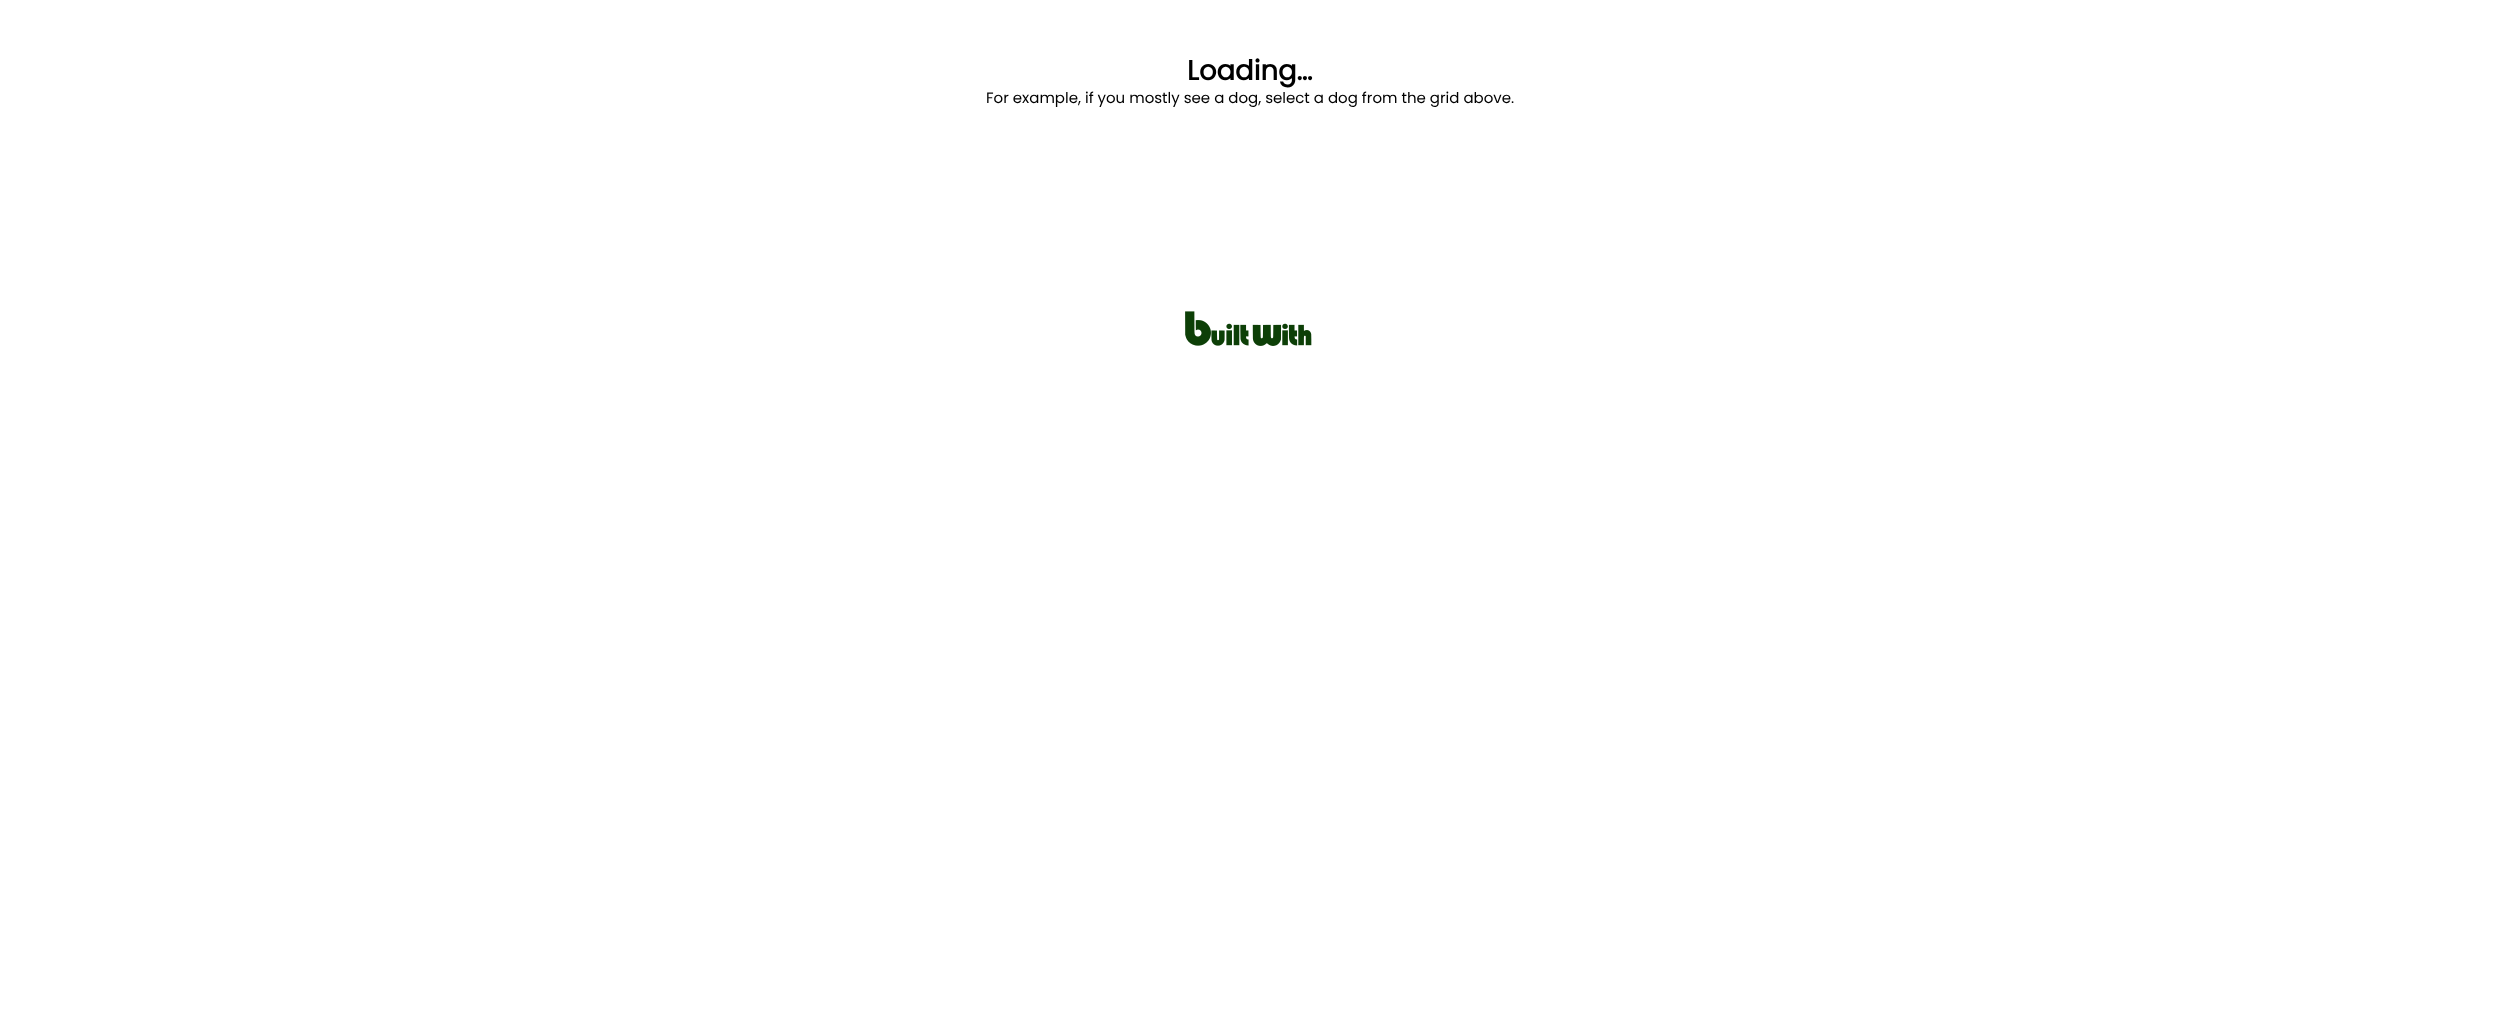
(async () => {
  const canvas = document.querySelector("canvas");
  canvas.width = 2499;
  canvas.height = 1012;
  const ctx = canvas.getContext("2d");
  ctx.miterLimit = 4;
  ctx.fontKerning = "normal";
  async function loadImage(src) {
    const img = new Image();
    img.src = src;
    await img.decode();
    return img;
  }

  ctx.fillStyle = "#ffffff";
  ctx.fillRect(0, 0, 2499, 1012);
  ctx.drawImage(await loadImage("img/1.png"), 1185, 311, 127, 35);
  ctx.font = "bold 27.5px Poppins";
  ctx.fillStyle = "#000000";
  ctx.fillText("Loading…", 1187, 80);
  ctx.font = "15px Poppins";
  ctx.fillText("For example, if you mostly see a dog, select a dog from the grid above.", 986, 103);
})();
